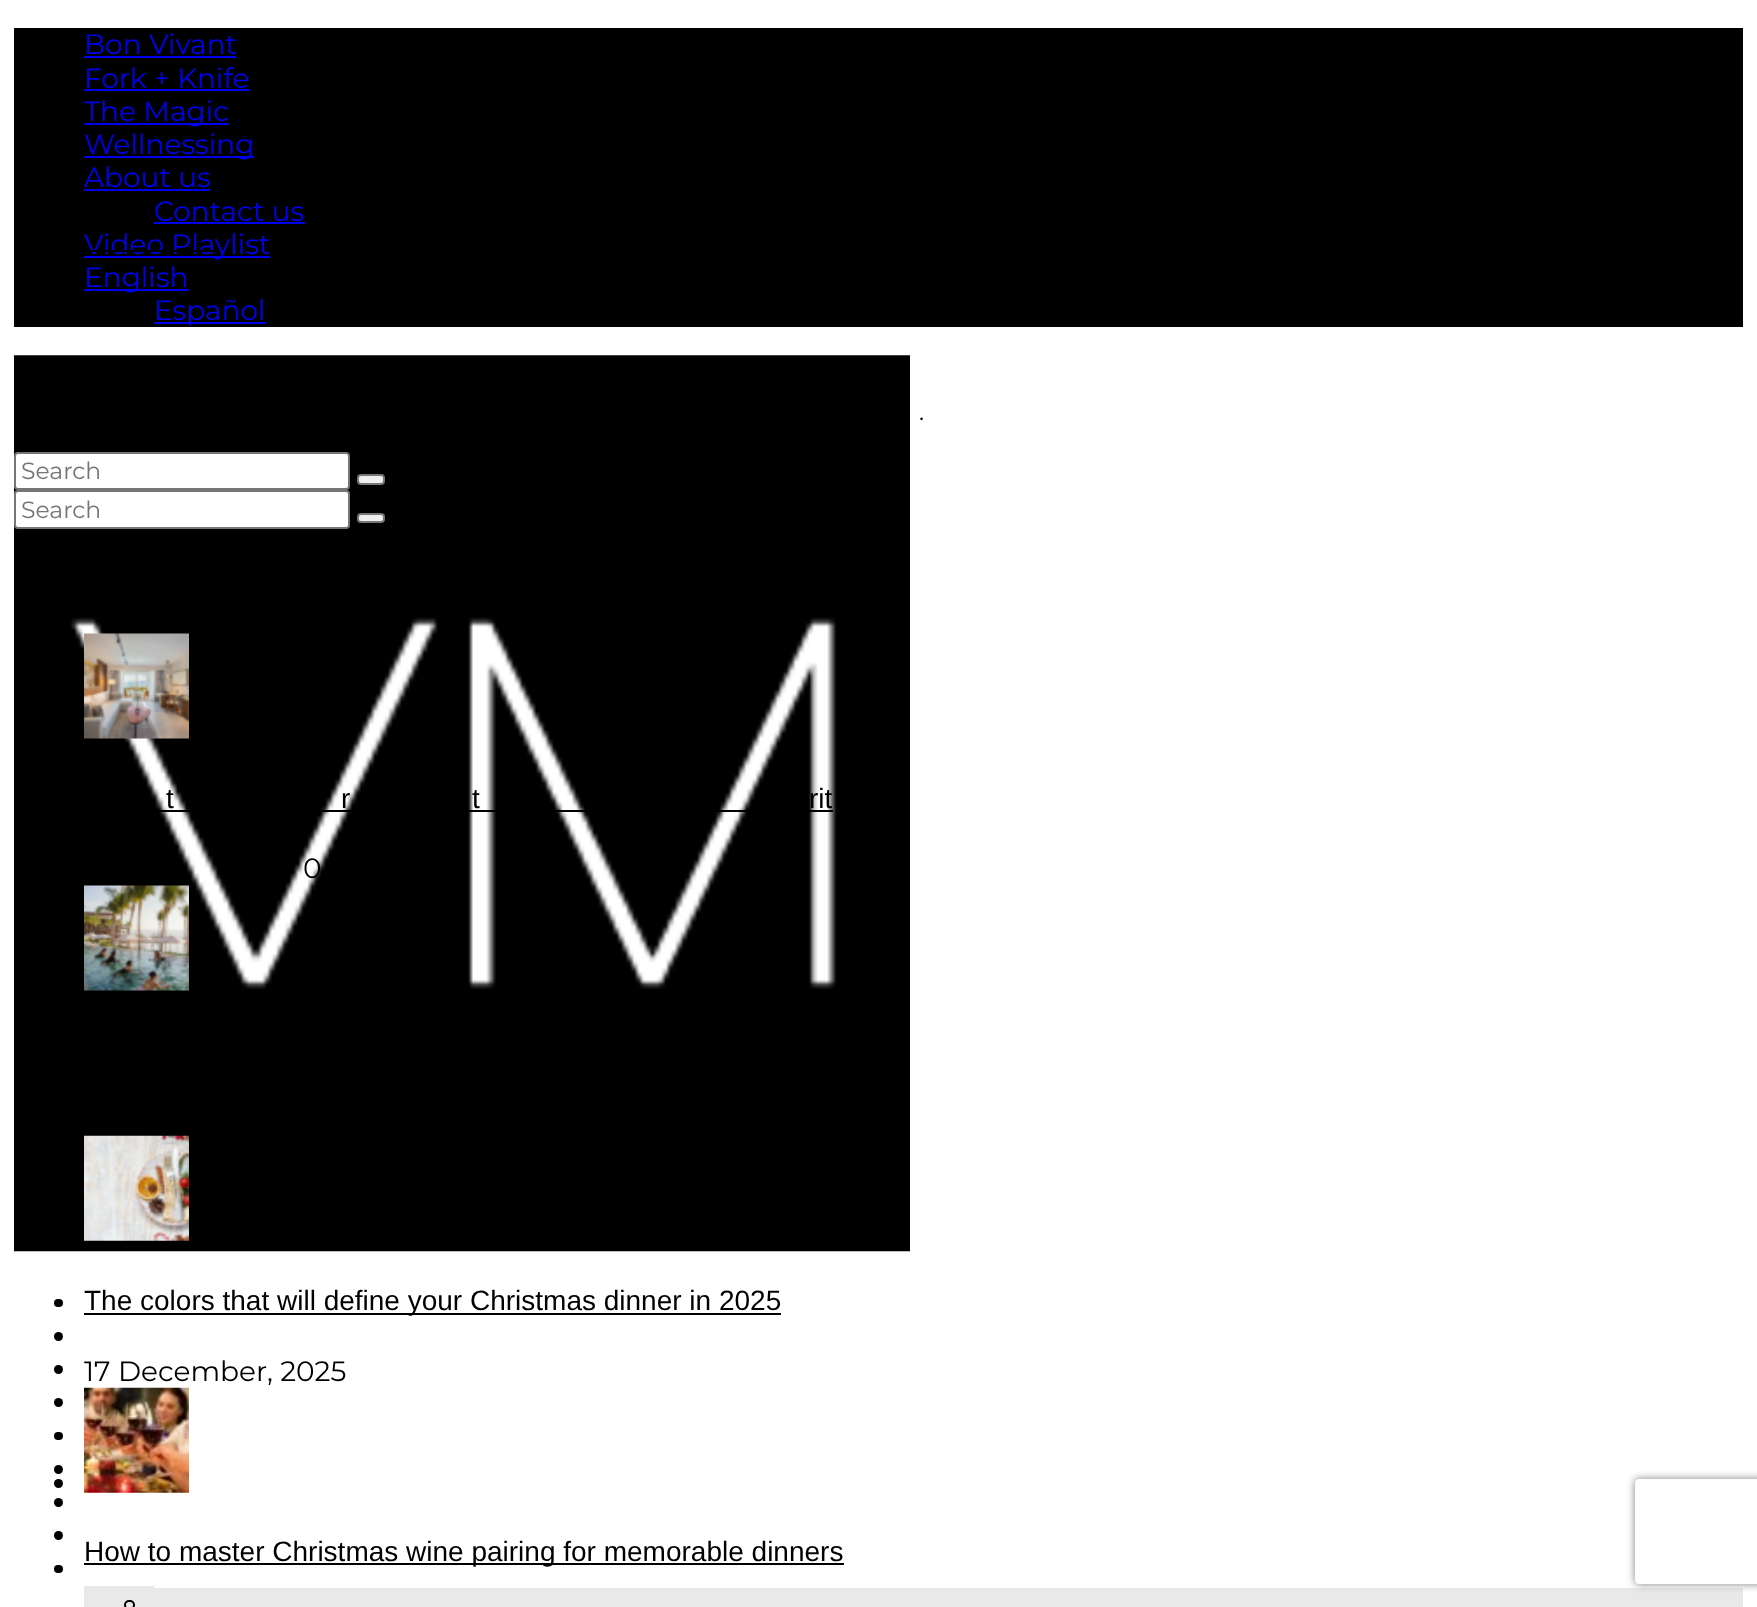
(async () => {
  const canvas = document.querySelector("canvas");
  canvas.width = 1757;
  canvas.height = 1607;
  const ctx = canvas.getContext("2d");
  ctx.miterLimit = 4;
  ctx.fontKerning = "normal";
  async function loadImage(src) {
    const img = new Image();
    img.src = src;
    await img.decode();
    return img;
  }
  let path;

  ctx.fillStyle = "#ffffff";
  ctx.fillRect(0, 0, 1757, 1607);
  for (const [x, y, w, h, color] of [
    [14, 28, 1729, 299, "#000000"],
    [84, 56, 152, 2, "#0000ee"],
    [84, 89, 166, 2, "#0000ee"],
    [84, 123, 145, 2, "#0000ee"],
    [84, 156, 170, 2, "#0000ee"],
    [84, 189, 126, 2, "#0000ee"],
    [154, 222, 151, 2, "#0000ee"],
    [84, 256, 186, 2, "#0000ee"],
    [84, 289, 105, 2, "#0000ee"],
    [154, 322, 112, 2, "#0000ee"],
  ]) {
    ctx.fillStyle = color;
    ctx.fillRect(x, y, w, h);
  }
  ctx.drawImage(await loadImage("img/1.png"), 14, 355, 896, 897);
  ctx.fillStyle = "#000000";
  ctx.beginPath();
  ctx.roundRect(54, 1299, 9, 8, 4);
  ctx.fill();
  ctx.beginPath();
  ctx.arc(58.5, 1336.5, 4.5, 0, Math.PI * 2);
  ctx.fill();
  ctx.beginPath();
  ctx.arc(58.5, 1369.5, 4.5, 0, Math.PI * 2);
  ctx.fill();
  ctx.beginPath();
  ctx.arc(58.5, 1402.5, 4.5, 0, Math.PI * 2);
  ctx.fill();
  ctx.beginPath();
  ctx.roundRect(54, 1432, 9, 8, 4);
  ctx.fill();
  ctx.beginPath();
  ctx.arc(58.5, 1469.5, 4.5, 0, Math.PI * 2);
  ctx.fill();
  ctx.beginPath();
  ctx.arc(58.5, 1502.5, 4.5, 0, Math.PI * 2);
  ctx.fill();
  ctx.beginPath();
  ctx.arc(58.5, 1535.5, 4.5, 0, Math.PI * 2);
  ctx.fill();
  ctx.beginPath();
  ctx.roundRect(54, 1565, 9, 8, 4);
  ctx.fill();
  ctx.fillStyle = "#e9e9e9";
  ctx.fillRect(84, 1586, 1659, 21);
  ctx.fillStyle = "#ffffff";
  ctx.fillRect(154, 1586, 1589, 2);
  ctx.beginPath();
  ctx.roundRect(125, 1601, 9, 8, 4);
  ctx.strokeStyle = "#000000";
  ctx.lineWidth = 2;
  ctx.stroke();
  ctx.beginPath();
  ctx.roundRect(15, 453, 334, 36, 3);
  ctx.fill();
  ctx.strokeStyle = "#767676";
  ctx.stroke();
  ctx.fillStyle = "#efefef";
  ctx.beginPath();
  ctx.roundRect(358, 475, 26, 9, 3);
  ctx.fill();
  ctx.stroke();
  ctx.fillStyle = "#ffffff";
  ctx.beginPath();
  ctx.roundRect(15, 491, 334, 37, 3);
  ctx.fill();
  ctx.stroke();
  ctx.fillStyle = "#efefef";
  ctx.beginPath();
  ctx.roundRect(358, 514, 26, 8, 3);
  ctx.fill();
  ctx.stroke();
  ctx.drawImage(await loadImage("img/2.png"), 84, 633, 105, 106);
  ctx.fillStyle = "#000000";
  ctx.fillRect(158, 810, 675, 2);
  ctx.drawImage(await loadImage("img/3.png"), 84, 885, 105, 106);
  ctx.drawImage(await loadImage("img/4.png"), 84, 1135, 105, 106);
  ctx.fillRect(84, 1313, 697, 2);
  ctx.beginPath();
  ctx.arc(58.5, 1483.5, 4.5, 0, Math.PI * 2);
  ctx.fill();
  ctx.drawImage(await loadImage("img/5.png"), 84, 1387, 105, 106);
  ctx.fillRect(84, 1563, 760, 2);
  ctx.save();
  path = new Path2D("M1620 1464H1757V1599H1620ZM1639 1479H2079C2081 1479 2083 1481 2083 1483V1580C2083 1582 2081 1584 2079 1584H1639C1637 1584 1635 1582 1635 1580V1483C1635 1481 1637 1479 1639 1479Z");
  ctx.clip(path, "evenodd");
  ctx.fillStyle = "#808080";
  ctx.filter = "blur(4.5px)";
  ctx.beginPath();
  ctx.roundRect(1635, 1479, 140, 105, 4);
  ctx.fill();
  ctx.filter = "none";
  ctx.restore();
  ctx.font = "28px Montserrat";
  ctx.fillStyle = "#0000ee";
  for (const [text, x, y] of [
    ["Bon Vivant", 84, 54],
    ["Fork + Knife", 84, 88],
    ["The Magic", 84, 121],
    ["Wellnessing", 84, 154],
    ["About us", 84, 187],
    ["Contact us", 154, 221],
    ["Video Playlist", 84, 254],
    ["English", 84, 287],
    ["Español", 154, 320],
  ]) {
    ctx.fillText(text, x, y);
  }
  ctx.fillStyle = "#000000";
  ctx.fillRect(91, 250, 126, 2);
  ctx.font = "24px Montserrat";
  ctx.fillText(".", 919, 420);
  ctx.font = "23.5px Montserrat";
  ctx.fillStyle = "#757575";
  ctx.fillText("Search", 21, 479);
  ctx.fillText("Search", 21, 518);
  ctx.font = "28px Liberation Sans";
  ctx.fillStyle = "#000000";
  for (const [text, x, y] of [
    ["t", 166, 808],
    ["r", 341, 808],
    ["t", 472, 808],
    ["rit", 809, 808],
  ]) {
    ctx.fillText(text, x, y);
  }
  ctx.font = "28px Montserrat";
  ctx.fillText("0", 303, 878);
  ctx.font = "28px Liberation Sans";
  ctx.fillText("The colors that will define your Christmas dinner in 2025", 84, 1310);
  ctx.font = "28px Montserrat";
  ctx.fillText("17 December, 2025", 84, 1381);
  ctx.font = "28px Liberation Sans";
  ctx.fillText("How to master Christmas wine pairing for memorable dinners", 84, 1561);
})();
